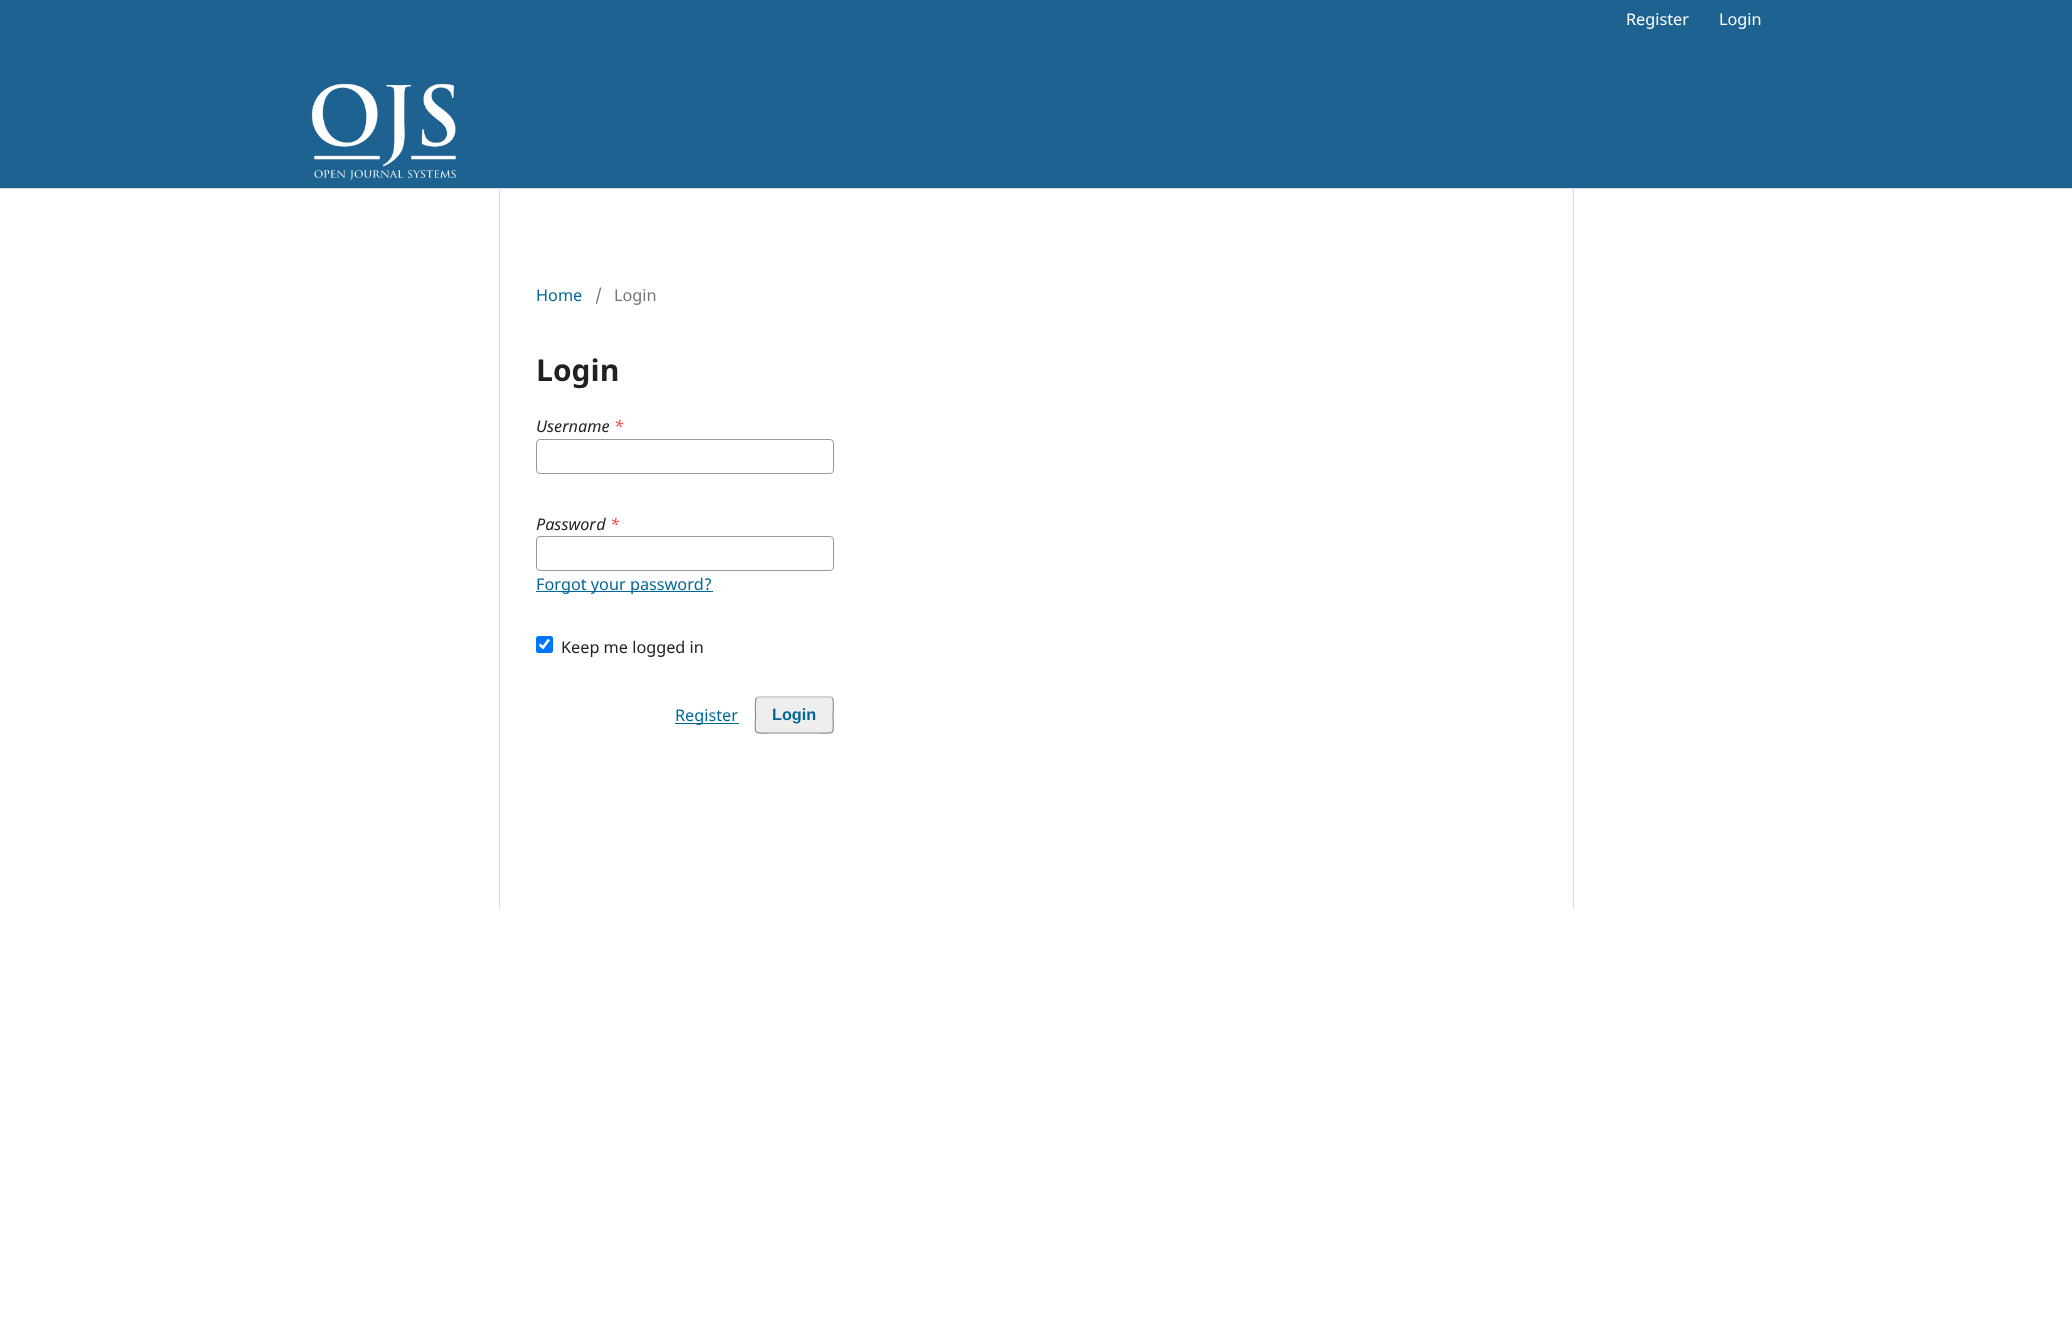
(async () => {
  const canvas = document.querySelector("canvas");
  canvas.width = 2072;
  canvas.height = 1342;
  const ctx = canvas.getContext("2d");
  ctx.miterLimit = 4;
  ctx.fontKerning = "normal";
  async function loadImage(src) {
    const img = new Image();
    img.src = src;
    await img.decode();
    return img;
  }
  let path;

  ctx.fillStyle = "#ffffff";
  ctx.fillRect(0, 0, 2072, 1342);
  ctx.fillStyle = "#1e6292";
  ctx.fillRect(0, 0, 2072, 188);
  ctx.fillStyle = "#dddddd";
  ctx.fillRect(0, 188, 2072, 1);
  ctx.drawImage(await loadImage("img/1.png"), 311, 83, 145, 98);
  ctx.fillRect(499, 189, 1, 720);
  ctx.beginPath();
  ctx.roundRect(536.5, 439.5, 297, 34, 3.5);
  ctx.strokeStyle = "#999999";
  ctx.stroke();
  ctx.beginPath();
  ctx.roundRect(536.5, 536.5, 297, 34, 3.5);
  ctx.stroke();
  ctx.fillStyle = "#006798";
  ctx.fillRect(536, 591, 177, 1);
  ctx.fillStyle = "#0075ff";
  ctx.beginPath();
  ctx.roundRect(536, 636, 17, 17, 2.5);
  ctx.fill();
  path = new Path2D("M539.5 644.5L543 647.5L549 639.5");
  ctx.strokeStyle = "#ffffff";
  ctx.lineWidth = 2.6;
  ctx.stroke(path);
  ctx.fillStyle = "#006798";
  ctx.fillRect(675, 723, 64, 1);
  ctx.fillStyle = "#eeeeee";
  ctx.beginPath();
  ctx.roundRect(755, 696, 79, 38, 4);
  ctx.fill();
  path = new Path2D("M756.5 698L758.5 697H830.5L832 698");
  ctx.strokeStyle = "#bbbbbb";
  ctx.lineWidth = 1.2;
  ctx.stroke(path);
  path = new Path2D("M832 698C834.5 700 833 712 833 715C833 735 837 733 818 733H770.5C751.5 733 755.5 735 755.5 715C755.5 712 754.5 700 756.5 698");
  ctx.strokeStyle = "rgba(0, 0, 0, 0.4)";
  ctx.stroke(path);
  ctx.fillStyle = "#dddddd";
  ctx.fillRect(1573, 189, 1, 720);
  ctx.font = "16.25px Noto Sans";
  ctx.fillStyle = "#ffffff";
  ctx.fillText("Register", 1626, 25);
  ctx.fillText("Login", 1719, 25);
  ctx.fillStyle = "#006798";
  ctx.fillText("Home", 536, 301);
  ctx.fillStyle = "#757575";
  ctx.fillText("/", 595, 301);
  ctx.fillText("Login", 614, 301);
  ctx.font = "bold 30px Noto Sans";
  ctx.fillStyle = "#212121";
  ctx.fillText("Login", 536, 381);
  ctx.font = "italic 16.25px Noto Sans";
  ctx.fillText("Username", 536, 432);
  ctx.fillStyle = "#ff4040";
  ctx.fillText("*", 614, 432);
  ctx.fillStyle = "#212121";
  ctx.fillText("Password", 536, 530);
  ctx.fillStyle = "#ff4040";
  ctx.fillText("*", 610, 530);
  ctx.font = "16.25px Noto Sans";
  ctx.fillStyle = "#006798";
  ctx.fillText("Forgot your password?", 536, 590);
  ctx.fillStyle = "#212121";
  ctx.fillText("Keep me logged in", 561, 653);
  ctx.fillStyle = "#006798";
  ctx.fillText("Register", 675, 721);
  ctx.font = "bold 16.25px Liberation Sans";
  ctx.fillText("Login", 772, 720);
})();
